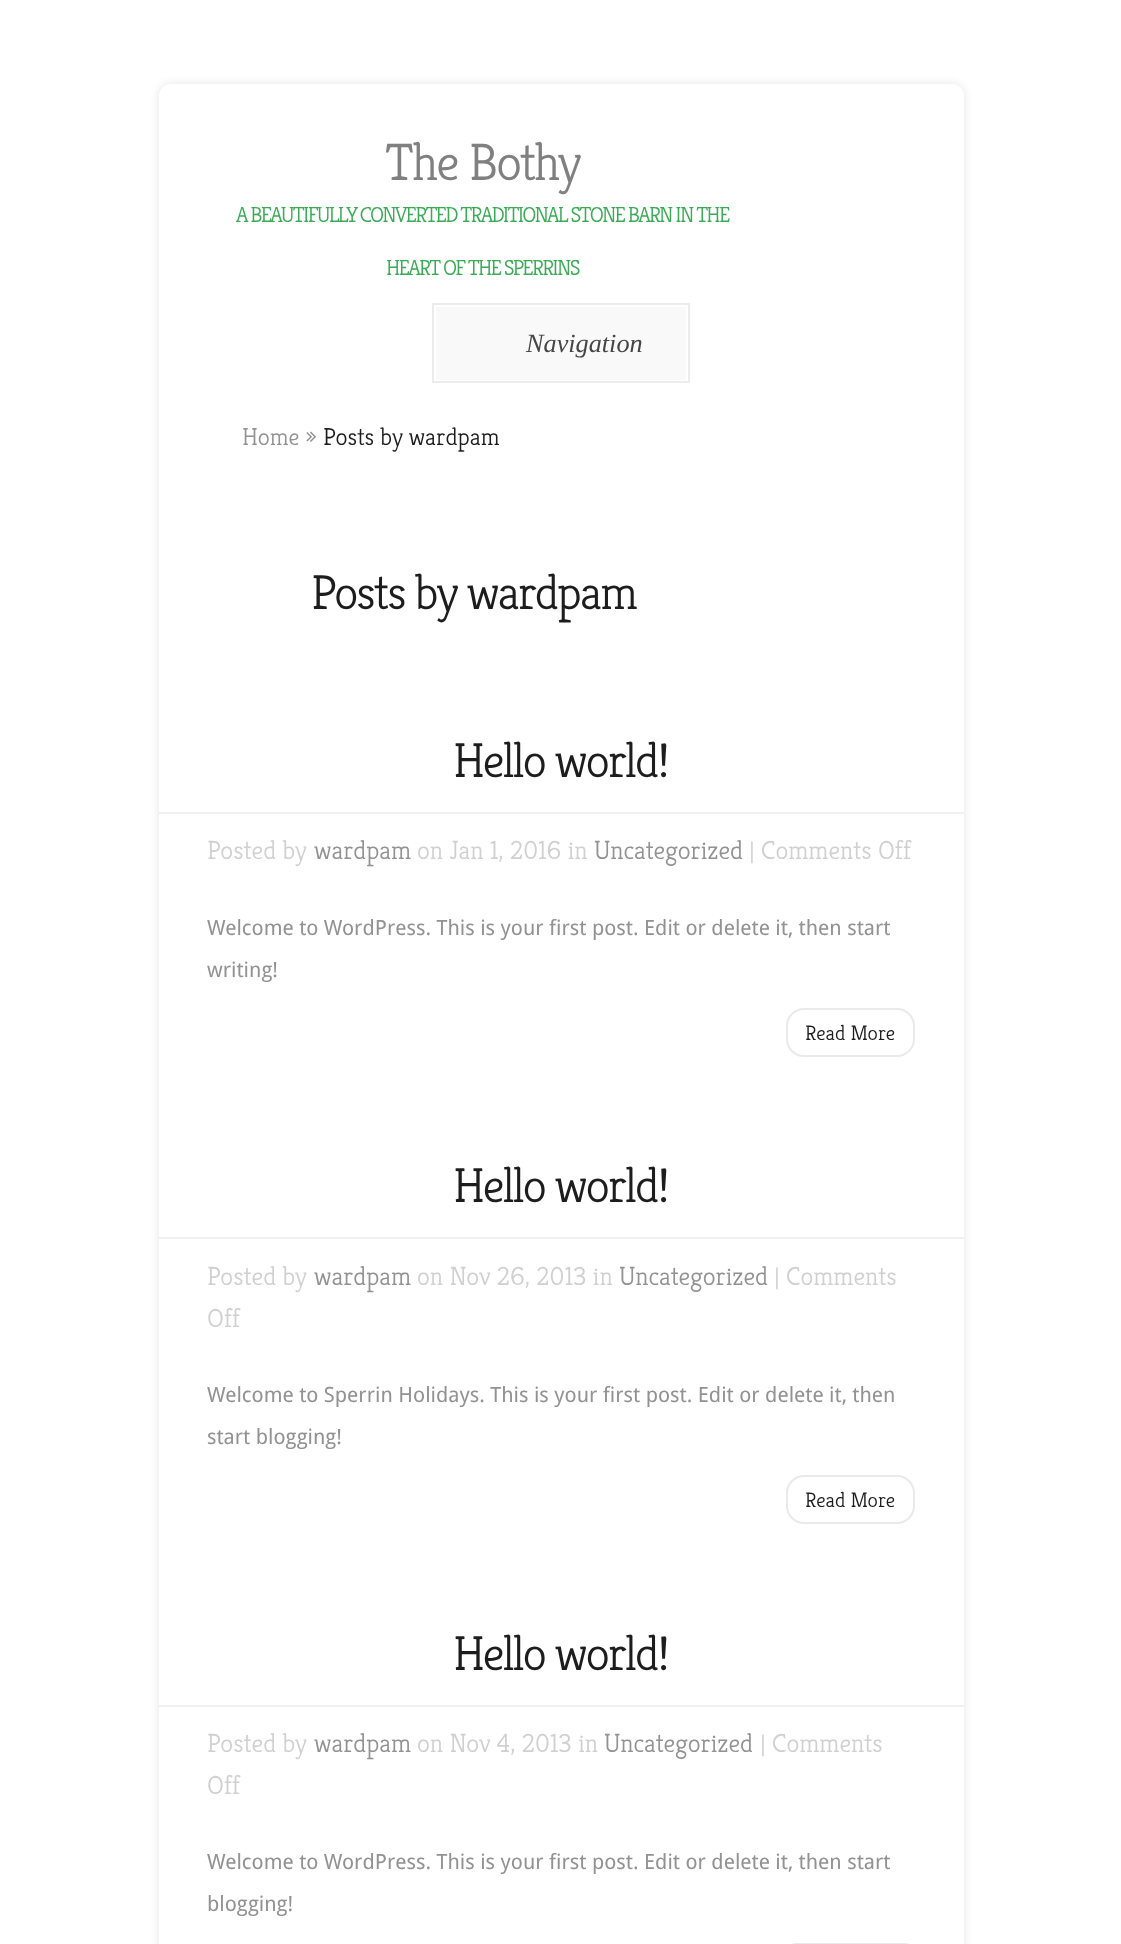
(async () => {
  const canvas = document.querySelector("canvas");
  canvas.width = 1121;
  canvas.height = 1944;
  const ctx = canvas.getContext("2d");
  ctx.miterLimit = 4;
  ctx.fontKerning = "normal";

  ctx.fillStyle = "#ffffff";
  ctx.fillRect(0, 0, 1121, 1944);
  ctx.fillStyle = "rgba(0, 0, 0, 0.1)";
  ctx.filter = "blur(5px)";
  ctx.beginPath();
  ctx.roundRect(159, 84, 805, 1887, 12);
  ctx.fill();
  ctx.filter = "none";
  ctx.fillStyle = "#ffffff";
  ctx.beginPath();
  ctx.roundRect(159, 84, 805, 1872, 12);
  ctx.fill();
  ctx.fillStyle = "#f9f9f9";
  ctx.fillRect(436, 307, 250, 73);
  ctx.strokeStyle = "#ececec";
  ctx.lineWidth = 2;
  ctx.strokeRect(433, 304, 256, 78);
  ctx.fillStyle = "#f0f0f0";
  ctx.fillRect(159, 812, 805, 2);
  ctx.beginPath();
  ctx.roundRect(787, 1009, 127, 47, 17);
  ctx.strokeStyle = "#eaeaea";
  ctx.stroke();
  ctx.fillRect(159, 1237, 805, 2);
  ctx.beginPath();
  ctx.roundRect(787, 1476, 127, 47, 17);
  ctx.stroke();
  ctx.fillRect(159, 1705, 805, 2);
  ctx.beginPath();
  ctx.roundRect(787, 1944, 127, 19, 17);
  ctx.stroke();
  ctx.letterSpacing = "-1.75px";
  ctx.font = "300 52.5px Kreon";
  ctx.fillStyle = "#808080";
  ctx.fillText("The Bothy", 385, 180);
  ctx.font = "300 21.9px Kreon";
  ctx.fillStyle = "#3aab55";
  ctx.fillText("A BEAUTIFULLY CONVERTED TRADITIONAL STONE BARN IN THE", 236, 222);
  ctx.fillText("HEART OF THE SPERRINS", 386, 275);
  ctx.letterSpacing = "0px";
  ctx.font = "italic 26.25px Liberation Serif";
  ctx.fillStyle = "#464646";
  ctx.fillText("Navigation", 526, 352);
  ctx.font = "300 24.5px Kreon";
  ctx.fillStyle = "#929292";
  ctx.fillText("Home »", 242, 445);
  ctx.fillStyle = "#1d1d1d";
  ctx.fillText("Posts by wardpam", 323, 445);
  ctx.letterSpacing = "-1.75px";
  ctx.font = "300 49px Kreon";
  ctx.fillText("Posts by wardpam", 311, 609);
  ctx.fillText("Hello world!", 453, 777);
  ctx.letterSpacing = "0px";
  ctx.font = "300 26.25px Kreon";
  ctx.fillStyle = "#d0d0d0";
  ctx.fillText("Posted by", 207, 859);
  ctx.fillStyle = "#929292";
  ctx.fillText("wardpam", 314, 859);
  ctx.fillStyle = "#d0d0d0";
  ctx.fillText("on Jan 1, 2016 in", 417, 859);
  ctx.fillStyle = "#929292";
  ctx.fillText("Uncategorized", 594, 859);
  ctx.fillStyle = "#d0d0d0";
  ctx.fillText("| Comments Off", 749, 859);
  ctx.font = "21px Droid Sans";
  ctx.fillStyle = "#929292";
  ctx.fillText("Welcome to WordPress. This is your first post. Edit or delete it, then start", 207, 935);
  ctx.fillText("writing!", 207, 977);
  ctx.font = "300 21px Kreon";
  ctx.fillStyle = "#1d1d1d";
  ctx.fillText("Read More", 805, 1040);
  ctx.letterSpacing = "-1.75px";
  ctx.font = "300 49px Kreon";
  ctx.fillText("Hello world!", 453, 1202);
  ctx.letterSpacing = "0px";
  ctx.font = "300 26.25px Kreon";
  ctx.fillStyle = "#d0d0d0";
  ctx.fillText("Posted by", 207, 1285);
  ctx.fillStyle = "#929292";
  ctx.fillText("wardpam", 314, 1285);
  ctx.fillStyle = "#d0d0d0";
  ctx.fillText("on Nov 26, 2013 in", 417, 1285);
  ctx.fillStyle = "#929292";
  ctx.fillText("Uncategorized", 619, 1285);
  ctx.fillStyle = "#d0d0d0";
  ctx.fillText("| Comments", 774, 1285);
  ctx.fillText("Off", 207, 1327);
  ctx.font = "21px Droid Sans";
  ctx.fillStyle = "#929292";
  ctx.fillText("Welcome to Sperrin Holidays. This is your first post. Edit or delete it, then", 207, 1402);
  ctx.fillText("start blogging!", 207, 1444);
  ctx.font = "300 21px Kreon";
  ctx.fillStyle = "#1d1d1d";
  ctx.fillText("Read More", 805, 1507);
  ctx.letterSpacing = "-1.75px";
  ctx.font = "300 49px Kreon";
  ctx.fillText("Hello world!", 453, 1670);
  ctx.letterSpacing = "0px";
  ctx.font = "300 26.25px Kreon";
  ctx.fillStyle = "#d0d0d0";
  ctx.fillText("Posted by", 207, 1752);
  ctx.fillStyle = "#929292";
  ctx.fillText("wardpam", 314, 1752);
  ctx.fillStyle = "#d0d0d0";
  ctx.fillText("on Nov 4, 2013 in", 417, 1752);
  ctx.fillStyle = "#929292";
  ctx.fillText("Uncategorized", 604, 1752);
  ctx.fillStyle = "#d0d0d0";
  ctx.fillText("| Comments", 760, 1752);
  ctx.fillText("Off", 207, 1794);
  ctx.font = "21px Droid Sans";
  ctx.fillStyle = "#929292";
  ctx.fillText("Welcome to WordPress. This is your first post. Edit or delete it, then start", 207, 1869);
  ctx.fillText("blogging!", 207, 1911);
})();
